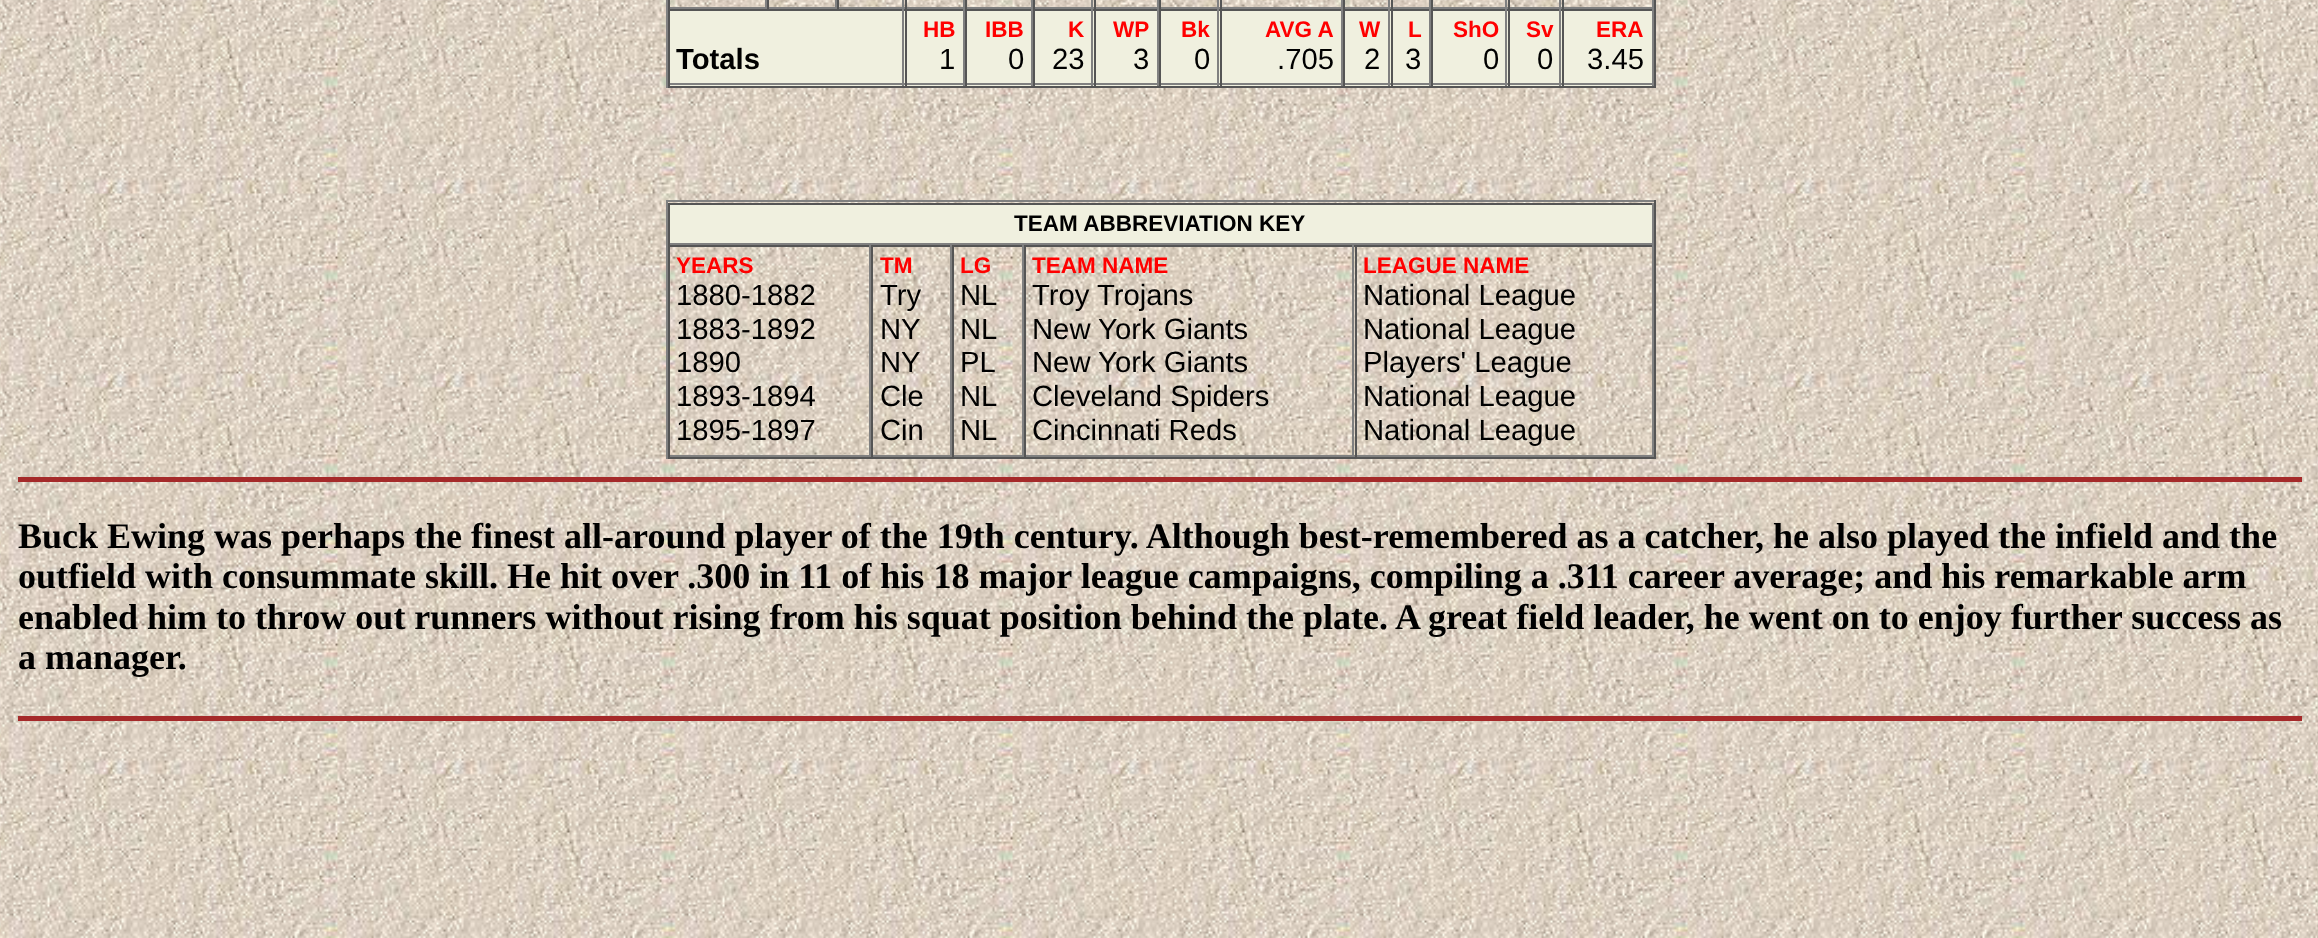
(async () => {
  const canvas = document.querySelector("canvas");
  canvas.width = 2318;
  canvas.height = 938;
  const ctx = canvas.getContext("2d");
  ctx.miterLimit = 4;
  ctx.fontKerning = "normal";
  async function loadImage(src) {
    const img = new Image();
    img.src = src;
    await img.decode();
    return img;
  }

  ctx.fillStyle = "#ffffff";
  ctx.fillRect(0, 0, 2318, 938);
  ctx.drawImage(await loadImage("img/1.png"), 0, 0, 2318, 938);
  for (const [x, y, w, h, color] of [
    [1654, 0, 2, 88, "#555555"],
    [666, 86, 990, 2, "#555555"],
    [666, 0, 2, 88, "#808080"],
    [765, 0, 2, 9, "#808080"],
    [668, 7, 99, 2, "#808080"],
    [668, 0, 2, 9, "#555555"],
    [835, 0, 2, 9, "#808080"],
    [767, 7, 70, 2, "#808080"],
    [767, 0, 2, 9, "#555555"],
    [902, 0, 2, 9, "#808080"],
    [837, 7, 68, 2, "#808080"],
    [837, 0, 2, 9, "#555555"],
    [963, 0, 2, 9, "#808080"],
    [905, 7, 60, 2, "#808080"],
    [905, 0, 2, 9, "#555555"],
    [1031, 0, 2, 9, "#808080"],
    [965, 7, 68, 2, "#808080"],
    [965, 0, 2, 9, "#555555"],
    [1091, 0, 2, 9, "#808080"],
    [1033, 7, 61, 2, "#808080"],
    [1033, 0, 2, 9, "#555555"],
    [1157, 0, 2, 9, "#808080"],
    [1094, 7, 65, 2, "#808080"],
    [1094, 0, 2, 9, "#555555"],
    [1217, 0, 2, 9, "#808080"],
    [1159, 7, 61, 2, "#808080"],
    [1159, 0, 2, 9, "#555555"],
    [1341, 0, 2, 9, "#808080"],
    [1220, 7, 123, 2, "#808080"],
    [1220, 0, 2, 9, "#555555"],
    [1388, 0, 2, 9, "#808080"],
    [1343, 7, 48, 2, "#808080"],
    [1343, 0, 2, 9, "#555555"],
    [1429, 0, 2, 9, "#808080"],
    [1391, 7, 40, 2, "#808080"],
    [1391, 0, 2, 9, "#555555"],
    [1505, 0, 2, 9, "#808080"],
    [1431, 7, 77, 2, "#808080"],
    [1431, 0, 2, 9, "#555555"],
    [1559, 0, 2, 9, "#808080"],
    [1508, 7, 54, 2, "#808080"],
    [1508, 0, 2, 9, "#555555"],
    [1652, 0, 2, 9, "#808080"],
    [1562, 7, 92, 2, "#808080"],
    [1562, 0, 2, 9, "#555555"],
    [670, 11, 982, 75, "#f0f0df"],
    [668, 9, 986, 2, "#555555"],
    [902, 9, 2, 77, "#808080"],
    [668, 83, 237, 2, "#808080"],
    [668, 9, 2, 77, "#555555"],
    [963, 9, 2, 77, "#808080"],
    [905, 83, 60, 2, "#808080"],
    [905, 9, 2, 77, "#555555"],
    [1031, 9, 2, 77, "#808080"],
    [965, 83, 68, 2, "#808080"],
    [965, 9, 2, 77, "#555555"],
    [1091, 9, 2, 77, "#808080"],
    [1033, 83, 61, 2, "#808080"],
    [1033, 9, 2, 77, "#555555"],
    [1157, 9, 2, 77, "#808080"],
    [1094, 83, 65, 2, "#808080"],
    [1094, 9, 2, 77, "#555555"],
    [1217, 9, 2, 77, "#808080"],
    [1159, 83, 61, 2, "#808080"],
    [1159, 9, 2, 77, "#555555"],
    [1341, 9, 2, 77, "#808080"],
    [1220, 83, 123, 2, "#808080"],
    [1220, 9, 2, 77, "#555555"],
    [1388, 9, 2, 77, "#808080"],
    [1343, 83, 48, 2, "#808080"],
    [1343, 9, 2, 77, "#555555"],
    [1429, 9, 2, 77, "#808080"],
    [1391, 83, 40, 2, "#808080"],
    [1391, 9, 2, 77, "#555555"],
    [1505, 9, 2, 77, "#808080"],
    [1431, 83, 77, 2, "#808080"],
    [1431, 9, 2, 77, "#555555"],
    [1559, 9, 2, 77, "#808080"],
    [1508, 83, 54, 2, "#808080"],
    [1508, 9, 2, 77, "#555555"],
    [1652, 9, 2, 77, "#808080"],
    [1562, 83, 92, 2, "#808080"],
    [1562, 9, 2, 77, "#555555"],
    [666, 200, 990, 2, "#808080"],
    [1654, 200, 2, 259, "#555555"],
    [666, 457, 990, 2, "#555555"],
    [666, 200, 2, 259, "#808080"],
    [670, 205, 982, 38, "#f0f0df"],
    [668, 203, 986, 2, "#555555"],
    [1652, 203, 2, 42, "#808080"],
    [668, 243, 986, 2, "#808080"],
    [668, 203, 2, 42, "#555555"],
    [668, 245, 986, 2, "#555555"],
    [869, 245, 2, 212, "#808080"],
    [668, 455, 203, 2, "#808080"],
    [668, 245, 2, 212, "#555555"],
    [950, 245, 2, 212, "#808080"],
    [871, 455, 81, 2, "#808080"],
    [871, 245, 2, 212, "#555555"],
    [1022, 245, 2, 212, "#808080"],
    [952, 455, 72, 2, "#808080"],
    [952, 245, 2, 212, "#555555"],
    [1352, 245, 2, 212, "#808080"],
    [1024, 455, 331, 2, "#808080"],
    [1024, 245, 2, 212, "#555555"],
    [1652, 245, 2, 212, "#808080"],
    [1355, 455, 299, 2, "#808080"],
    [1355, 245, 2, 212, "#555555"],
    [18, 477, 2284, 5, "#a52a2a"],
    [18, 716, 2284, 5, "#a52a2a"],
  ]) {
    ctx.fillStyle = color;
    ctx.fillRect(x, y, w, h);
  }
  ctx.font = "bold 29.25px Liberation Sans";
  ctx.fillStyle = "#000000";
  ctx.fillText("Totals", 676, 69);
  ctx.font = "bold 22.5px Liberation Sans";
  ctx.fillStyle = "#ff0000";
  ctx.fillText("HB", 923, 37);
  ctx.font = "29.25px Liberation Sans";
  ctx.fillStyle = "#000000";
  ctx.fillText("1", 939, 69);
  ctx.font = "bold 22.5px Liberation Sans";
  ctx.fillStyle = "#ff0000";
  ctx.fillText("IBB", 985, 37);
  ctx.font = "29.25px Liberation Sans";
  ctx.fillStyle = "#000000";
  ctx.fillText("0", 1008, 69);
  ctx.font = "bold 22.5px Liberation Sans";
  ctx.fillStyle = "#ff0000";
  ctx.fillText("K", 1068, 37);
  ctx.font = "29.25px Liberation Sans";
  ctx.fillStyle = "#000000";
  ctx.fillText("23", 1052, 69);
  ctx.font = "bold 22.5px Liberation Sans";
  ctx.fillStyle = "#ff0000";
  ctx.fillText("WP", 1113, 37);
  ctx.font = "29.25px Liberation Sans";
  ctx.fillStyle = "#000000";
  ctx.fillText("3", 1133, 69);
  ctx.font = "bold 22.5px Liberation Sans";
  ctx.fillStyle = "#ff0000";
  ctx.fillText("Bk", 1181, 37);
  ctx.font = "29.25px Liberation Sans";
  ctx.fillStyle = "#000000";
  ctx.fillText("0", 1194, 69);
  ctx.font = "bold 22.5px Liberation Sans";
  ctx.fillStyle = "#ff0000";
  ctx.fillText("AVG A", 1265, 37);
  ctx.font = "29.25px Liberation Sans";
  ctx.fillStyle = "#000000";
  ctx.fillText(".705", 1277, 69);
  ctx.font = "bold 22.5px Liberation Sans";
  ctx.fillStyle = "#ff0000";
  ctx.fillText("W", 1359, 37);
  ctx.font = "29.25px Liberation Sans";
  ctx.fillStyle = "#000000";
  ctx.fillText("2", 1364, 69);
  ctx.font = "bold 22.5px Liberation Sans";
  ctx.fillStyle = "#ff0000";
  ctx.fillText("L", 1408, 37);
  ctx.font = "29.25px Liberation Sans";
  ctx.fillStyle = "#000000";
  ctx.fillText("3", 1405, 69);
  ctx.font = "bold 22.5px Liberation Sans";
  ctx.fillStyle = "#ff0000";
  ctx.fillText("ShO", 1453, 37);
  ctx.font = "29.25px Liberation Sans";
  ctx.fillStyle = "#000000";
  ctx.fillText("0", 1483, 69);
  ctx.font = "bold 22.5px Liberation Sans";
  ctx.fillStyle = "#ff0000";
  ctx.fillText("Sv", 1526, 37);
  ctx.font = "29.25px Liberation Sans";
  ctx.fillStyle = "#000000";
  ctx.fillText("0", 1537, 69);
  ctx.font = "bold 22.5px Liberation Sans";
  ctx.fillStyle = "#ff0000";
  ctx.fillText("ERA", 1596, 37);
  ctx.font = "29.25px Liberation Sans";
  ctx.fillStyle = "#000000";
  ctx.fillText("3.45", 1587, 69);
  ctx.font = "bold 22.5px Liberation Sans";
  ctx.fillText("TEAM ABBREVIATION KEY", 1014, 231);
  ctx.fillStyle = "#ff0000";
  ctx.fillText("YEARS", 676, 273);
  ctx.font = "29.25px Liberation Sans";
  ctx.fillStyle = "#000000";
  for (const [text, x, y] of [
    ["1880-1882", 676, 305],
    ["1883-1892", 676, 339],
    ["1890", 676, 372],
    ["1893-1894", 676, 406],
    ["1895-1897", 676, 440],
  ]) {
    ctx.fillText(text, x, y);
  }
  ctx.font = "bold 22.5px Liberation Sans";
  ctx.fillStyle = "#ff0000";
  ctx.fillText("TM", 880, 273);
  ctx.font = "29.25px Liberation Sans";
  ctx.fillStyle = "#000000";
  for (const [text, x, y] of [
    ["Try", 880, 305],
    ["NY", 880, 339],
    ["NY", 880, 372],
    ["Cle", 880, 406],
    ["Cin", 880, 440],
  ]) {
    ctx.fillText(text, x, y);
  }
  ctx.font = "bold 22.5px Liberation Sans";
  ctx.fillStyle = "#ff0000";
  ctx.fillText("LG", 960, 273);
  ctx.font = "29.25px Liberation Sans";
  ctx.fillStyle = "#000000";
  for (const [text, x, y] of [
    ["NL", 960, 305],
    ["NL", 960, 339],
    ["PL", 960, 372],
    ["NL", 960, 406],
    ["NL", 960, 440],
  ]) {
    ctx.fillText(text, x, y);
  }
  ctx.font = "bold 22.5px Liberation Sans";
  ctx.fillStyle = "#ff0000";
  ctx.fillText("TEAM NAME", 1032, 273);
  ctx.font = "29.25px Liberation Sans";
  ctx.fillStyle = "#000000";
  for (const [text, x, y] of [
    ["Troy Trojans", 1032, 305],
    ["New York Giants", 1032, 339],
    ["New York Giants", 1032, 372],
    ["Cleveland Spiders", 1032, 406],
    ["Cincinnati Reds", 1032, 440],
  ]) {
    ctx.fillText(text, x, y);
  }
  ctx.font = "bold 22.5px Liberation Sans";
  ctx.fillStyle = "#ff0000";
  ctx.fillText("LEAGUE NAME", 1363, 273);
  ctx.font = "29.25px Liberation Sans";
  ctx.fillStyle = "#000000";
  for (const [text, x, y] of [
    ["National League", 1363, 305],
    ["National League", 1363, 339],
    ["Players' League", 1363, 372],
    ["National League", 1363, 406],
    ["National League", 1363, 440],
  ]) {
    ctx.fillText(text, x, y);
  }
  ctx.font = "bold 36px Liberation Serif";
  for (const [text, x, y] of [
    ["Buck Ewing was perhaps the finest all-around player of the 19th century. Although best-remembered as a catcher, he also played the infield and the", 18, 548],
    ["outfield with consummate skill. He hit over .300 in 11 of his 18 major league campaigns, compiling a .311 career average; and his remarkable arm", 18, 588],
    ["enabled him to throw out runners without rising from his squat position behind the plate. A great field leader, he went on to enjoy further success as", 18, 629],
    ["a manager.", 18, 669],
  ]) {
    ctx.fillText(text, x, y);
  }
})();
